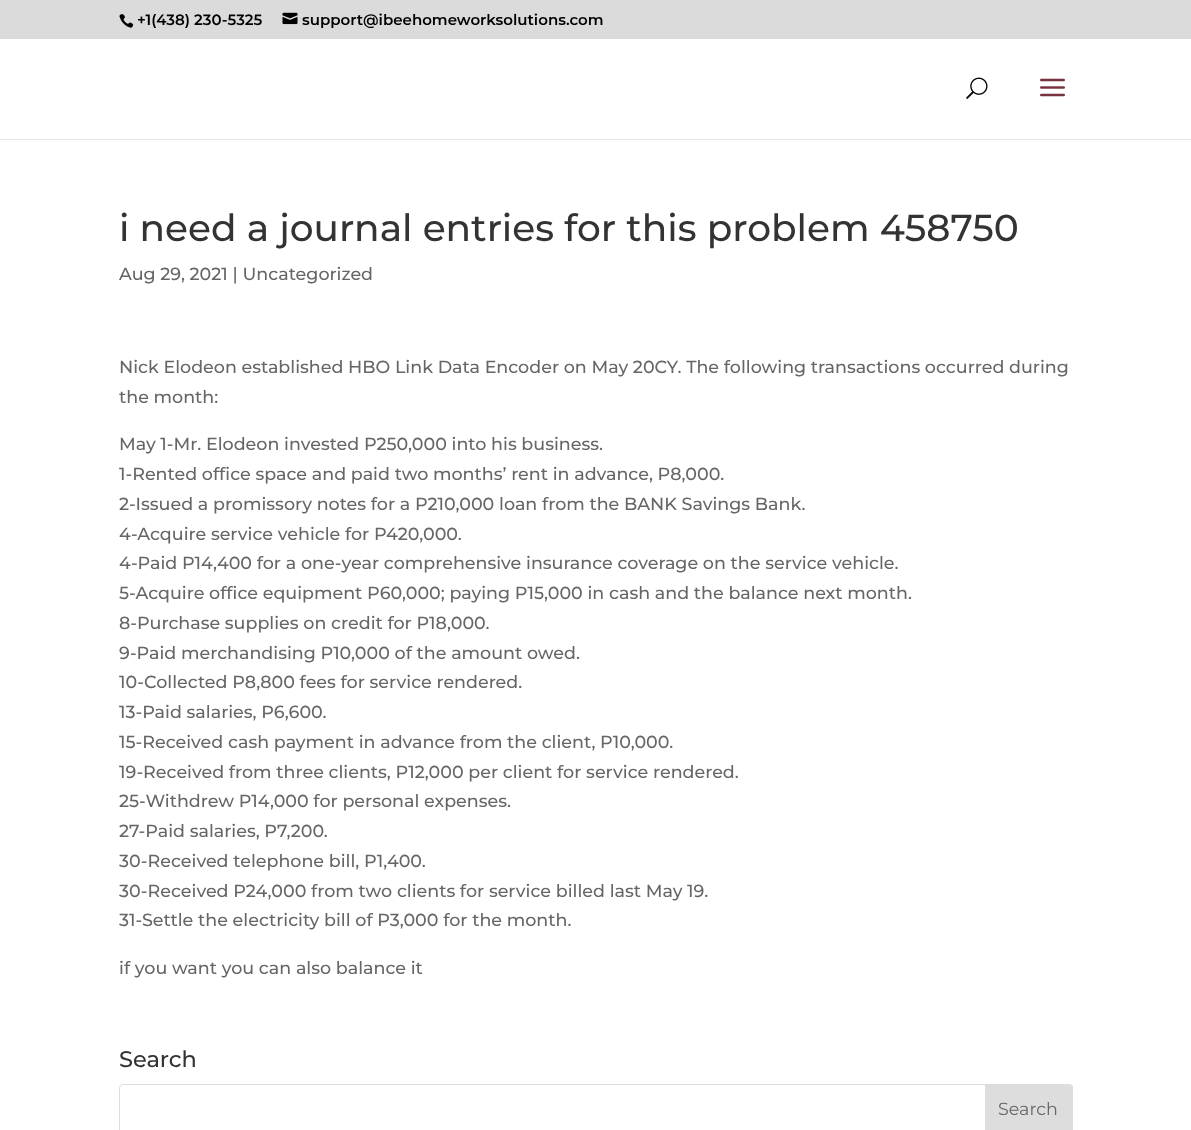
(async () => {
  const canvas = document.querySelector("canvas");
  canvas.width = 1191;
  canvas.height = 1130;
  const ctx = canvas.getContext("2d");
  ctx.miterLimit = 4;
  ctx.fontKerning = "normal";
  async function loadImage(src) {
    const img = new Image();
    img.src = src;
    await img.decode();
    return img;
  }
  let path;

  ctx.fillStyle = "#ffffff";
  ctx.fillRect(0, 0, 1191, 1130);
  ctx.fillStyle = "#dbdbdb";
  ctx.fillRect(0, 0, 1191, 39);
  ctx.drawImage(await loadImage("img/1.png"), 119, 14, 15, 14);
  ctx.drawImage(await loadImage("img/2.png"), 282, 12, 16, 13);
  ctx.fillStyle = "#e6e6e6";
  ctx.fillRect(0, 139, 1191, 1);
  ctx.drawImage(await loadImage("img/3.png"), 966, 77, 22, 22);
  ctx.drawImage(await loadImage("img/4.png"), 1040, 78, 25, 19);
  ctx.beginPath();
  ctx.roundRect(119.5, 1084.5, 953, 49, 3.5);
  ctx.strokeStyle = "#dddddd";
  ctx.stroke();
  ctx.fillStyle = "#dddddd";
  path = new Path2D("M985.5 1084.5H1069C1071 1084.5 1072.5 1086 1072.5 1088V1130C1072.5 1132 1071 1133.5 1069 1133.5H985.5Z");
  ctx.fill(path);
  ctx.stroke(path);
  ctx.font = "600 15px Montserrat";
  ctx.fillStyle = "#000000";
  ctx.fillText("+1(438) 230-5325", 137, 25);
  ctx.fillText("support@ibeehomeworksolutions.com", 302, 25);
  ctx.font = "500 37.5px Montserrat";
  ctx.fillStyle = "#333333";
  ctx.fillText("i need a journal entries for this problem 458750", 119, 241);
  ctx.font = "500 17.5px Montserrat";
  ctx.fillStyle = "#666666";
  for (const [text, x, y] of [
    ["Aug 29, 2021 | Uncategorized", 119, 280],
    ["Nick Elodeon established HBO Link Data Encoder on May 20CY. The following transactions occurred during", 119, 373],
    ["the month:", 119, 403],
    ["May 1-Mr. Elodeon invested P250,000 into his business.", 119, 450],
    ["1-Rented office space and paid two months’ rent in advance, P8,000.", 119, 480],
    ["2-Issued a promissory notes for a P210,000 loan from the BANK Savings Bank.", 119, 510],
    ["4-Acquire service vehicle for P420,000.", 119, 540],
    ["4-Paid P14,400 for a one-year comprehensive insurance coverage on the service vehicle.", 119, 569],
    ["5-Acquire office equipment P60,000; paying P15,000 in cash and the balance next month.", 119, 599],
    ["8-Purchase supplies on credit for P18,000.", 119, 629],
    ["9-Paid merchandising P10,000 of the amount owed.", 119, 659],
    ["10-Collected P8,800 fees for service rendered.", 119, 688],
    ["13-Paid salaries, P6,600.", 119, 718],
    ["15-Received cash payment in advance from the client, P10,000.", 119, 748],
    ["19-Received from three clients, P12,000 per client for service rendered.", 119, 778],
    ["25-Withdrew P14,000 for personal expenses.", 119, 807],
    ["27-Paid salaries, P7,200.", 119, 837],
    ["30-Received telephone bill, P1,400.", 119, 867],
    ["30-Received P24,000 from two clients for service billed last May 19.", 119, 897],
    ["31-Settle the electricity bill of P3,000 for the month.", 119, 926],
    ["if you want you can also balance it", 119, 974],
  ]) {
    ctx.fillText(text, x, y);
  }
  ctx.font = "500 22.5px Montserrat";
  ctx.fillStyle = "#333333";
  ctx.fillText("Search", 119, 1067);
  ctx.font = "17.5px Montserrat";
  ctx.fillStyle = "#666666";
  ctx.fillText("Search", 998, 1115);
})();
